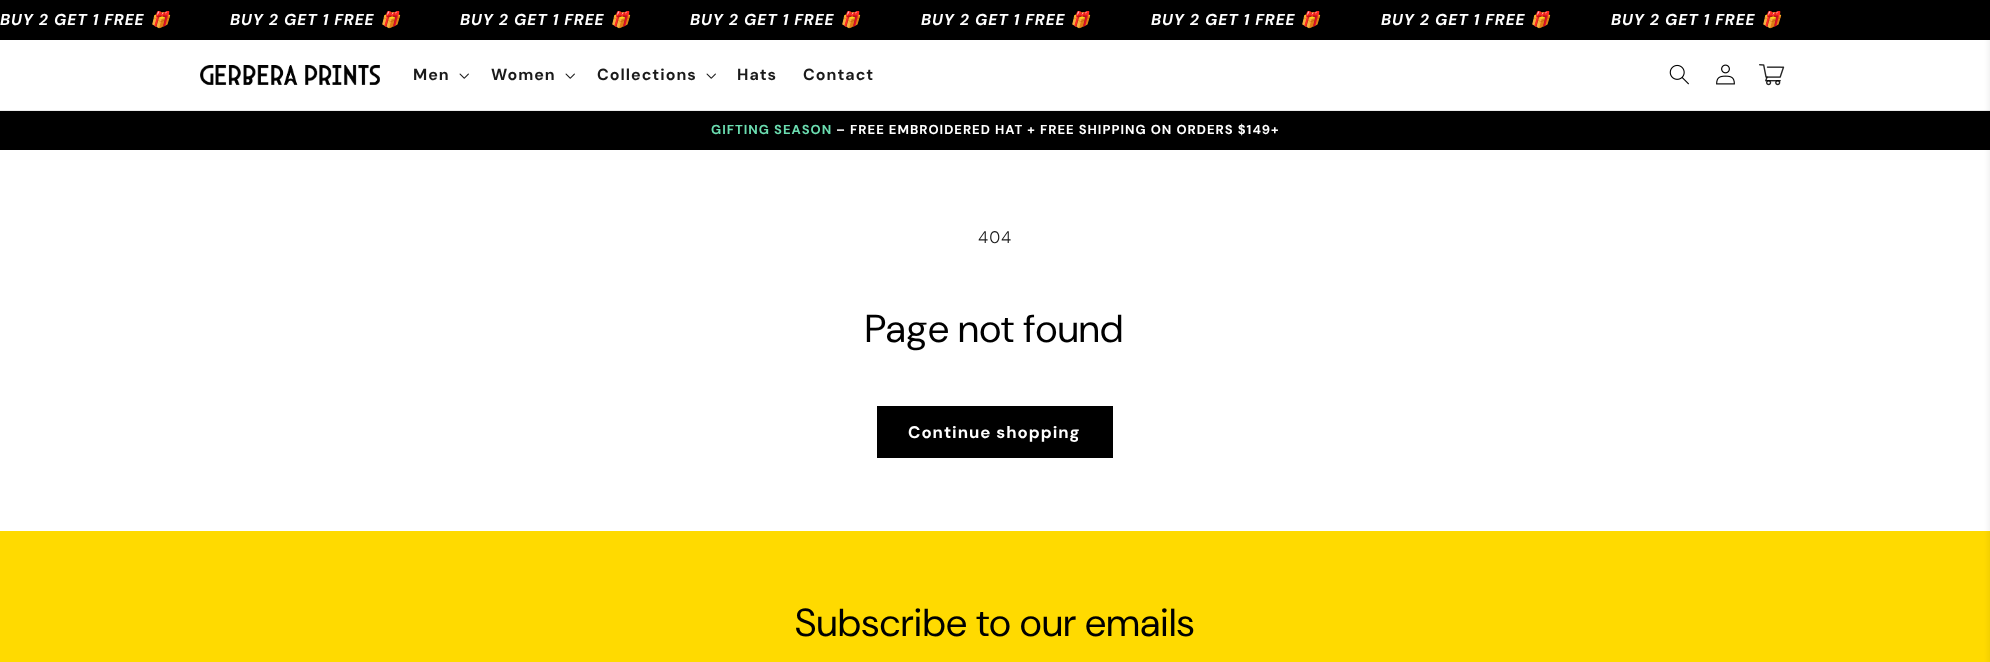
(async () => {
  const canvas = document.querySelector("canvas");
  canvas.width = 1990;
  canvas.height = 662;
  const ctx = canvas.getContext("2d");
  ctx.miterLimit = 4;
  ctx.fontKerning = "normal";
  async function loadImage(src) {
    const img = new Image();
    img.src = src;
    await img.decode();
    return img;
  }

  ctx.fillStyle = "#ffffff";
  ctx.fillRect(0, 0, 1990, 662);
  for (const [x, y, w, h, color] of [
    [0, 0, 1990, 40, "#000000"],
    [0, 110, 1990, 1, "#ebebeb"],
    [0, 111, 1990, 39, "#000000"],
    [0, 531, 1990, 131, "#ffda00"],
  ]) {
    ctx.fillStyle = color;
    ctx.fillRect(x, y, w, h);
  }
  ctx.fillStyle = "rgba(0, 0, 0, 0.1)";
  ctx.filter = "blur(3px)";
  ctx.beginPath();
  ctx.rect(1990, 4, 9, 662);
  ctx.fill();
  ctx.filter = "none";
  ctx.drawImage(await loadImage("img/1.png"), 200, 65, 180, 20);
  ctx.drawImage(await loadImage("img/2.png"), 459, 73, 10, 6);
  ctx.drawImage(await loadImage("img/2.png"), 565, 73, 10, 6);
  ctx.drawImage(await loadImage("img/2.png"), 706, 73, 10, 6);
  ctx.drawImage(await loadImage("img/3.png"), 1669, 64, 20, 21);
  ctx.drawImage(await loadImage("img/4.png"), 1716, 64, 19, 21);
  ctx.drawImage(await loadImage("img/5.png"), 1759, 64, 26, 22);
  ctx.fillStyle = "#000000";
  ctx.fillRect(877, 406, 236, 52);
  ctx.letterSpacing = "1px";
  ctx.font = "italic bold 15.75px DM Sans";
  ctx.fillStyle = "#ffffff";
  ctx.fillText("BUY 2 GET 1 FREE", 0, 25);
  ctx.font = "italic bold 15.75px Noto Color Emoji";
  ctx.fillText("🎁", 150, 25);
  ctx.font = "italic bold 15.75px DM Sans";
  ctx.fillText("BUY 2 GET 1 FREE", 230, 25);
  ctx.font = "italic bold 15.75px Noto Color Emoji";
  ctx.fillText("🎁", 380, 25);
  ctx.font = "italic bold 15.75px DM Sans";
  ctx.fillText("BUY 2 GET 1 FREE", 460, 25);
  ctx.font = "italic bold 15.75px Noto Color Emoji";
  ctx.fillText("🎁", 610, 25);
  ctx.font = "italic bold 15.75px DM Sans";
  ctx.fillText("BUY 2 GET 1 FREE", 690, 25);
  ctx.font = "italic bold 15.75px Noto Color Emoji";
  ctx.fillText("🎁", 840, 25);
  ctx.font = "italic bold 15.75px DM Sans";
  ctx.fillText("BUY 2 GET 1 FREE", 921, 25);
  ctx.font = "italic bold 15.75px Noto Color Emoji";
  ctx.fillText("🎁", 1070, 25);
  ctx.font = "italic bold 15.75px DM Sans";
  ctx.fillText("BUY 2 GET 1 FREE", 1151, 25);
  ctx.font = "italic bold 15.75px Noto Color Emoji";
  ctx.fillText("🎁", 1300, 25);
  ctx.font = "italic bold 15.75px DM Sans";
  ctx.fillText("BUY 2 GET 1 FREE", 1381, 25);
  ctx.font = "italic bold 15.75px Noto Color Emoji";
  ctx.fillText("🎁", 1530, 25);
  ctx.font = "italic bold 15.75px DM Sans";
  ctx.fillText("BUY 2 GET 1 FREE", 1611, 25);
  ctx.font = "italic bold 15.75px Noto Color Emoji";
  ctx.fillText("🎁", 1761, 25);
  ctx.font = "bold 16px 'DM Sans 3'";
  ctx.fillStyle = "#1a1a1a";
  for (const [text, x, y] of [
    ["Men", 413, 80],
    ["Women", 491, 80],
    ["Collections", 597, 80],
    ["Hats", 737, 80],
    ["Contact", 803, 80],
  ]) {
    ctx.fillText(text, x, y);
  }
  ctx.font = "bold 13px DM Sans";
  ctx.fillStyle = "#6bddb0";
  ctx.fillText("GIFTING SEASON", 711, 134);
  ctx.fillStyle = "#ffffff";
  ctx.fillText("– FREE EMBROIDERED HAT + FREE SHIPPING ON ORDERS $149+", 836, 134);
  ctx.font = "300 16.75px DM Sans";
  ctx.fillStyle = "#1a1a1a";
  ctx.fillText("404", 978, 243);
  ctx.letterSpacing = "0.75px";
  ctx.font = "39px DM Sans";
  ctx.fillStyle = "#000000";
  ctx.fillText("Page not found", 865, 342);
  ctx.letterSpacing = "1px";
  ctx.font = "bold 16.75px 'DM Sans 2'";
  ctx.fillStyle = "#ffffff";
  ctx.fillText("Continue shopping", 908, 438);
  ctx.letterSpacing = "0.75px";
  ctx.font = "39px DM Sans";
  ctx.fillStyle = "#000000";
  ctx.fillText("Subscribe to our emails", 795, 636);
})();
